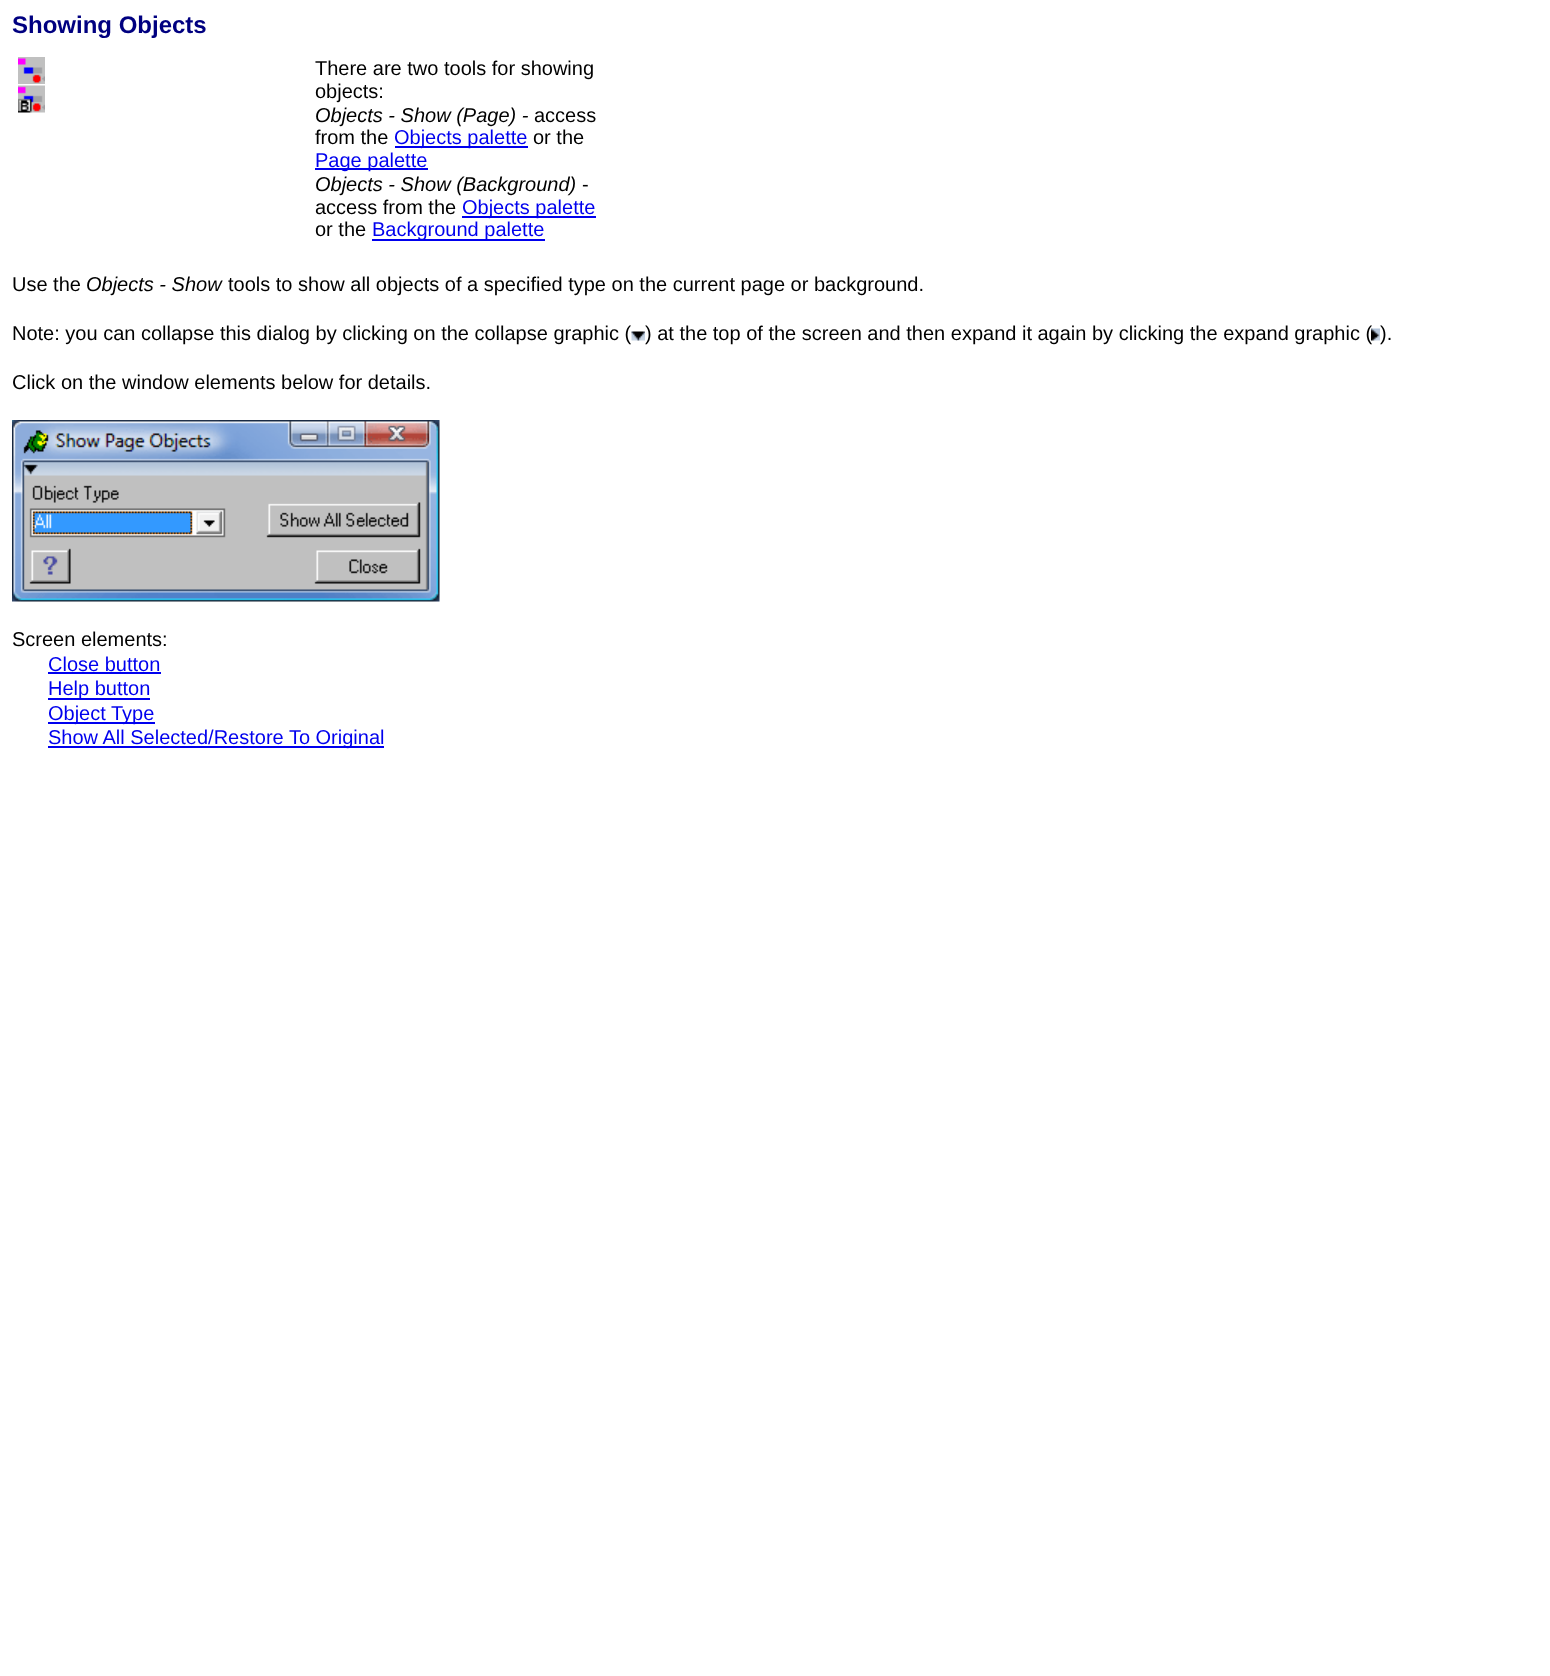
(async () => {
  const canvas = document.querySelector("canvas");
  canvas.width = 1550;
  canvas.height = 1676;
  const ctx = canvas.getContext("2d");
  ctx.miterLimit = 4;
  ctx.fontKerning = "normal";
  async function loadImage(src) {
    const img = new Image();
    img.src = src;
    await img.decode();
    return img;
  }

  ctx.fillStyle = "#ffffff";
  ctx.fillRect(0, 0, 1550, 1676);
  ctx.drawImage(await loadImage("img/1.png"), 18, 57, 27, 27);
  ctx.drawImage(await loadImage("img/2.png"), 18, 85, 27, 28);
  for (const [x, y, w, h, color] of [
    [395, 146, 133, 2, "#0000ee"],
    [315, 168, 113, 2, "#0000ee"],
    [462, 216, 134, 2, "#0000ee"],
    [372, 239, 173, 2, "#0000ee"],
  ]) {
    ctx.fillStyle = color;
    ctx.fillRect(x, y, w, h);
  }
  ctx.drawImage(await loadImage("img/5.png"), 12, 420, 428, 182);
  for (const [x, y, w, h, color] of [
    [48, 672, 113, 2, "#0000ee"],
    [48, 698, 102, 2, "#0000ee"],
    [48, 722, 107, 2, "#0000ee"],
    [48, 746, 336, 2, "#0000ee"],
  ]) {
    ctx.fillStyle = color;
    ctx.fillRect(x, y, w, h);
  }
  ctx.font = "bold 24px Liberation Sans";
  ctx.fillStyle = "#000080";
  ctx.fillText("Showing Objects", 12, 33);
  ctx.font = "20px Liberation Sans";
  ctx.fillStyle = "#000000";
  ctx.fillText("There are two tools for showing", 315, 75);
  ctx.fillText("objects:", 315, 98);
  ctx.font = "italic 20px Liberation Sans";
  ctx.fillText("Objects - Show (Page) -", 315, 122);
  ctx.font = "20px Liberation Sans";
  ctx.fillText("access", 534, 122);
  ctx.fillText("from the", 315, 144);
  ctx.fillStyle = "#0000ee";
  ctx.fillText("Objects palette", 394, 144);
  ctx.fillStyle = "#000000";
  ctx.fillText("or the", 533, 144);
  ctx.fillStyle = "#0000ee";
  ctx.fillText("Page palette", 315, 167);
  ctx.font = "italic 20px Liberation Sans";
  ctx.fillStyle = "#000000";
  ctx.fillText("Objects - Show (Background)", 315, 191);
  ctx.font = "20px Liberation Sans";
  ctx.fillText("-", 582, 191);
  ctx.fillText("access from the", 315, 214);
  ctx.fillStyle = "#0000ee";
  ctx.fillText("Objects palette", 462, 214);
  ctx.fillStyle = "#000000";
  ctx.fillText("or the", 315, 236);
  ctx.fillStyle = "#0000ee";
  ctx.fillText("Background palette", 372, 236);
  ctx.fillStyle = "#000000";
  ctx.fillText("Use the", 12, 291);
  ctx.font = "italic 20px Liberation Sans";
  ctx.fillText("Objects - Show", 86, 291);
  ctx.font = "20px Liberation Sans";
  ctx.fillText("tools to show all objects of a specified type on the current page or background.", 228, 291);
  ctx.fillText("Note: you can collapse this dialog by clicking on the collapse graphic (", 12, 340);
  ctx.drawImage(await loadImage("img/3.png"), 631, 331, 14, 10);
  ctx.fillText(") at the top of the screen and then expand it again by clicking the expand graphic (", 645, 340);
  ctx.drawImage(await loadImage("img/4.png"), 1371, 328, 9, 13);
  for (const [text, x, y] of [
    [").", 1380, 340],
    ["Click on the window elements below for details.", 12, 389],
    ["Screen elements:", 12, 646],
  ]) {
    ctx.fillText(text, x, y);
  }
  ctx.fillStyle = "#0000ee";
  for (const [text, x, y] of [
    ["Close button", 48, 671],
    ["Help button", 48, 695],
    ["Object Type", 48, 720],
    ["Show All Selected/Restore To Original", 48, 744],
  ]) {
    ctx.fillText(text, x, y);
  }
})();
